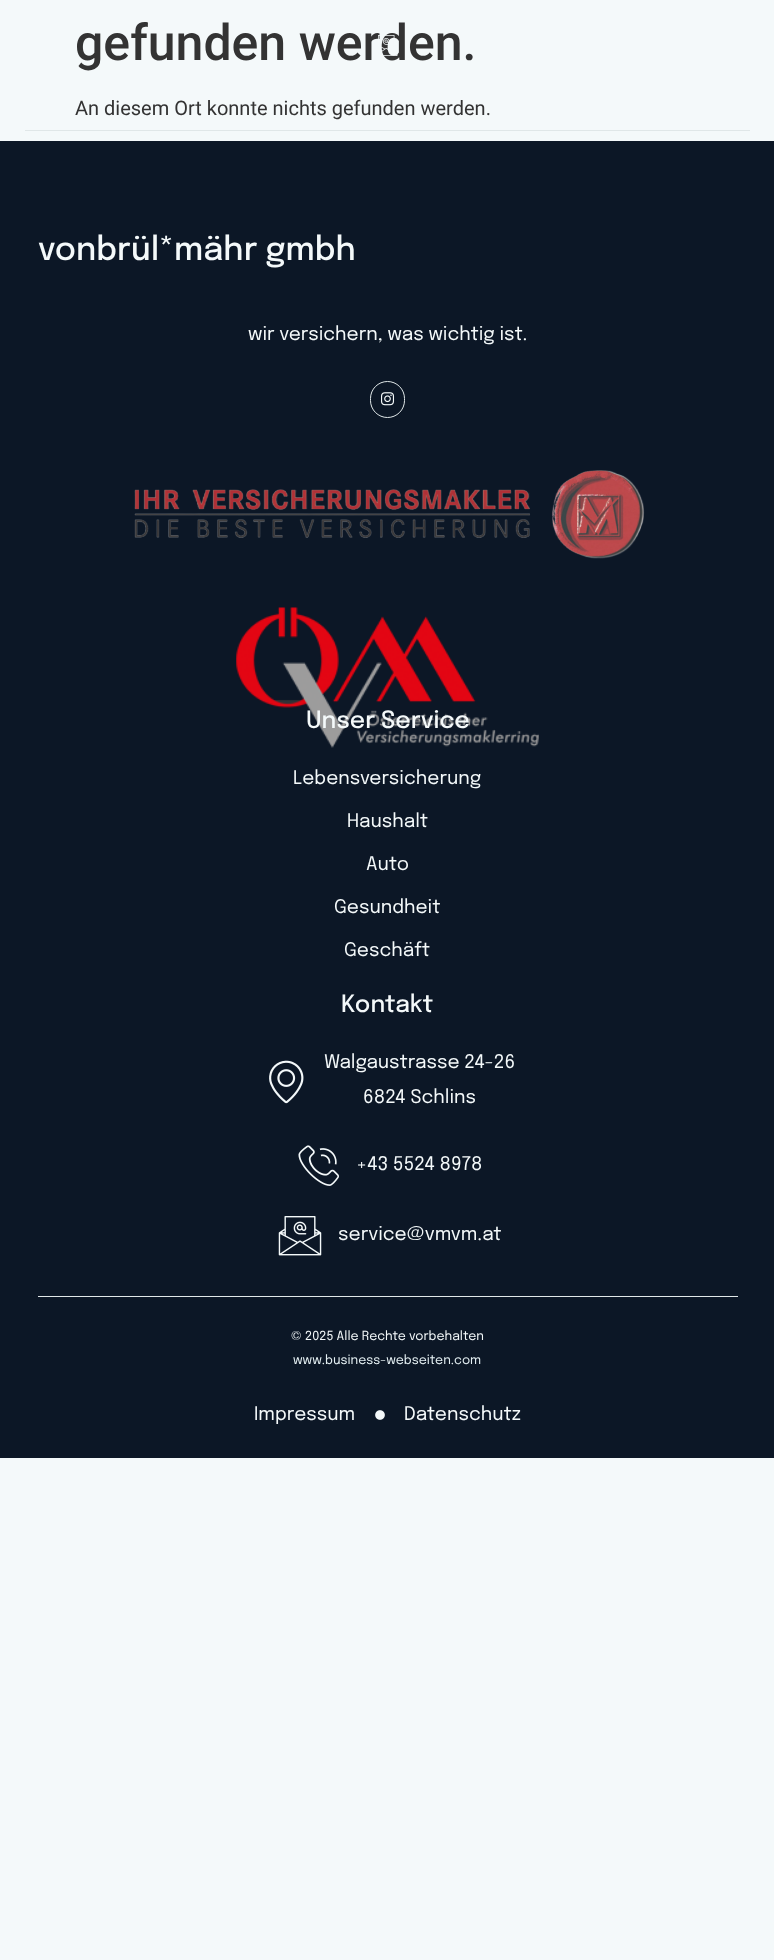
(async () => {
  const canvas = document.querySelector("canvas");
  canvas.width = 774;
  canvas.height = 1960;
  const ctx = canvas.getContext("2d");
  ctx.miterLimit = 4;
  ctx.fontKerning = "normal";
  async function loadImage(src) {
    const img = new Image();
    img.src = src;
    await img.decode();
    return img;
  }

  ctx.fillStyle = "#f4f9fa";
  ctx.fillRect(0, 0, 774, 1960);
  ctx.fillStyle = "#e0e7e8";
  ctx.fillRect(25, 130, 725, 1);
  ctx.fillStyle = "#0c1726";
  ctx.fillRect(0, 141, 774, 1317);
  ctx.beginPath();
  ctx.roundRect(370.5, 381.5, 34, 36, 17);
  ctx.strokeStyle = "#e0e7e8";
  ctx.stroke();
  ctx.drawImage(await loadImage("img/2.png"), 381, 392, 14, 14);
  ctx.drawImage(await loadImage("img/3.png"), 134, 470, 511, 89);
  ctx.drawImage(await loadImage("img/4.png"), 236, 607, 303, 141);
  ctx.drawImage(await loadImage("img/5.png"), 269, 1060, 35, 44);
  ctx.drawImage(await loadImage("img/6.png"), 298, 1145, 41, 41);
  ctx.drawImage(await loadImage("img/7.png"), 278, 1216, 44, 40);
  ctx.fillStyle = "#e0e7e8";
  ctx.fillRect(38, 1296, 700, 1);
  ctx.drawImage(await loadImage("img/8.png"), 375, 1410, 10, 10);
  ctx.font = "500 50px Roboto";
  ctx.fillStyle = "#333333";
  ctx.fillText("gefunden werden.", 75, 60);
  ctx.font = "20px Roboto";
  ctx.fillText("An diesem Ort konnte nichts gefunden werden.", 75, 115);
  ctx.drawImage(await loadImage("img/1.png"), 378, 35, 20, 21);
  ctx.font = "500 32.5px Epilogue";
  ctx.fillStyle = "#f4f9fa";
  ctx.fillText("vonbrül*mähr gmbh", 38, 260);
  ctx.font = "18.75px Epilogue";
  ctx.fillText("wir versichern, was wichtig ist.", 248, 340);
  ctx.font = "500 23.75px Epilogue";
  ctx.fillText("Unser Service", 306, 728);
  ctx.font = "18.75px Epilogue";
  for (const [text, x, y] of [
    ["Lebensversicherung", 293, 784],
    ["Haushalt", 347, 827],
    ["Auto", 366, 870],
    ["Gesundheit", 334, 913],
    ["Geschäft", 344, 956],
  ]) {
    ctx.fillText(text, x, y);
  }
  ctx.font = "500 23.75px Epilogue";
  ctx.fillText("Kontakt", 341, 1012);
  ctx.font = "18.75px Epilogue";
  for (const [text, x, y] of [
    ["Walgaustrasse 24-26", 324, 1068],
    ["6824 Schlins", 363, 1103],
    ["+43 5524 8978", 356, 1170],
    ["service@vmvm.at", 338, 1240],
  ]) {
    ctx.fillText(text, x, y);
  }
  ctx.font = "12.5px Epilogue";
  ctx.fillText("© 2025 Alle Rechte vorbehalten", 291, 1340);
  ctx.fillStyle = "#e5f0f3";
  ctx.fillText("www.business-webseiten.com", 293, 1364);
  ctx.font = "18.75px Epilogue";
  ctx.fillStyle = "#f4f9fa";
  ctx.fillText("Impressum", 254, 1420);
  ctx.fillText("Datenschutz", 404, 1420);
})();
